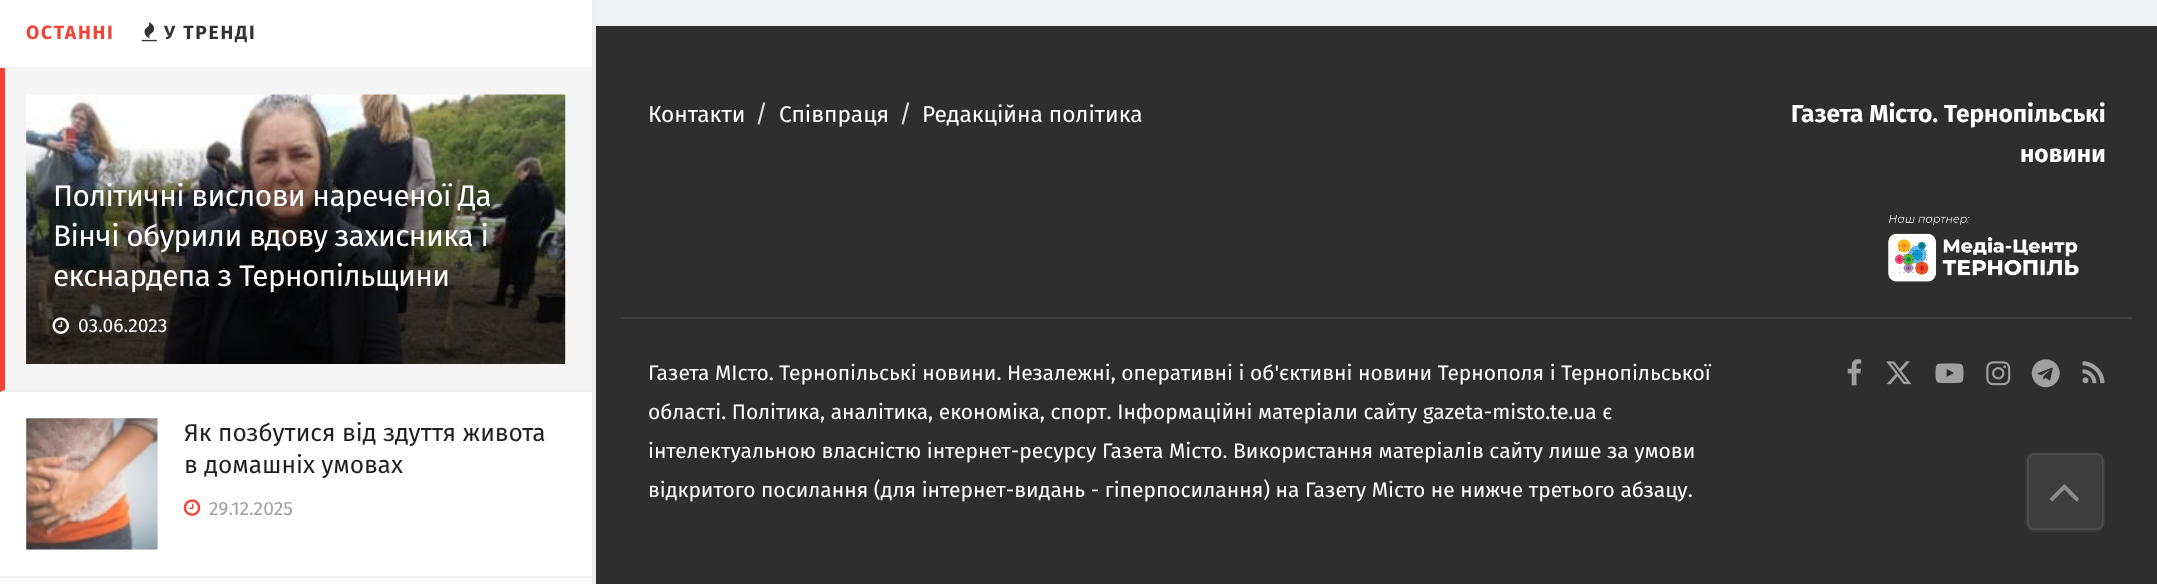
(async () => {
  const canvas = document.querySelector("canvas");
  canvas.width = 2157;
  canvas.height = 584;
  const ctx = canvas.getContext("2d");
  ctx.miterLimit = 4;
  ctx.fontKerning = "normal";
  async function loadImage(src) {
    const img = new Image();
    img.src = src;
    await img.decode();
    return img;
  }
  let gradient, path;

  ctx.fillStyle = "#ffffff";
  ctx.fillRect(0, 0, 2157, 584);
  ctx.fillStyle = "#eeeeee";
  ctx.fillRect(592, 0, 4, 584);
  ctx.fillRect(0, 67, 592, 1);
  ctx.drawImage(await loadImage("img/1.png"), 141, 22, 16, 20);
  ctx.fillStyle = "#f5f5f5";
  ctx.fillRect(0, 68, 592, 324);
  ctx.fillStyle = "#eeeeee";
  path = new Path2D("M592 392H0L5 390H592Z");
  ctx.fill(path);
  ctx.fillStyle = "#f44336";
  path = new Path2D("M0 392V68H5V390Z");
  ctx.fill(path);
  ctx.drawImage(await loadImage("img/2.png"), 26, 94, 540, 270);
  gradient = ctx.createLinearGradient(296, 143, 296, 364);
  gradient.addColorStop(0, "rgba(0, 0, 0, 0)");
  gradient.addColorStop(0.7, "rgba(0, 0, 0, 0.65)");
  ctx.fillStyle = gradient;
  ctx.fillRect(26, 148, 539, 216);
  ctx.drawImage(await loadImage("img/3.png"), 52, 317, 17, 17);
  ctx.fillStyle = "#eeeeee";
  ctx.fillRect(0, 576, 592, 2);
  ctx.fillStyle = "#f7f7f7";
  ctx.fillRect(26, 418, 132, 132);
  ctx.drawImage(await loadImage("img/4.png"), 26, 418, 132, 132);
  ctx.drawImage(await loadImage("img/5.png"), 183, 499, 18, 17);
  ctx.fillStyle = "#f0f1f2";
  ctx.fillRect(596, 0, 1561, 26);
  ctx.fillStyle = "#2e2e2e";
  ctx.fillRect(596, 26, 1561, 558);
  ctx.drawImage(await loadImage("img/6.png"), 1888, 215, 191, 67);
  ctx.fillStyle = "#3f3f3f";
  ctx.fillRect(621, 317, 1511, 2);
  ctx.drawImage(await loadImage("img/7.png"), 1847, 359, 15, 27);
  ctx.drawImage(await loadImage("img/8.png"), 1886, 361, 26, 24);
  ctx.drawImage(await loadImage("img/9.png"), 1935, 363, 29, 21);
  ctx.drawImage(await loadImage("img/10.png"), 1986, 361, 25, 25);
  ctx.drawImage(await loadImage("img/11.png"), 2031, 359, 29, 29);
  ctx.drawImage(await loadImage("img/12.png"), 2082, 361, 23, 23);
  ctx.fillStyle = "#3e3e3e";
  ctx.beginPath();
  ctx.roundRect(2025, 452, 80, 80, 9);
  ctx.fill();
  ctx.beginPath();
  ctx.roundRect(2028, 454, 75, 75, 6);
  ctx.strokeStyle = "#4d4d4d";
  ctx.lineWidth = 2;
  ctx.stroke();
  ctx.beginPath();
  ctx.roundRect(2026, 453, 78, 78, 8);
  ctx.strokeStyle = "rgba(9, 9, 9, 0.11)";
  ctx.stroke();
  ctx.drawImage(await loadImage("img/13.png"), 2049, 484, 30, 18);
  ctx.letterSpacing = "1.75px";
  ctx.font = "bold 19.25px Fira Sans";
  ctx.fillStyle = "#f44336";
  ctx.fillText("ОСТАННІ", 26, 39);
  ctx.fillStyle = "#333333";
  ctx.fillText("У ТРЕНДІ", 164, 39);
  ctx.letterSpacing = "-0.6px";
  ctx.font = "29.75px Fira Sans";
  ctx.fillStyle = "#ffffff";
  for (const [text, x, y] of [
    ["Політичні вислови нареченої Да", 53, 206],
    ["Вінчі обурили вдову захисника і", 53, 246],
    ["екснардепа з Тернопільщини", 53, 286],
  ]) {
    ctx.fillText(text, x, y);
  }
  ctx.letterSpacing = "0px";
  ctx.font = "19.25px Fira Sans";
  ctx.fillText("03.06.2023", 78, 332);
  ctx.font = "24.5px Fira Sans";
  ctx.fillStyle = "#221e22";
  ctx.fillText("Як позбутися від здуття живота", 184, 441);
  ctx.fillText("в домашніх умовах", 184, 473);
  ctx.font = "19.25px Fira Sans";
  ctx.fillStyle = "#a0a0a0";
  ctx.fillText("29.12.2025", 209, 515);
  ctx.font = "22.75px Fira Sans";
  ctx.fillStyle = "#ffffff";
  ctx.fillText("Контакти", 648, 122);
  ctx.font = "24.5px Fira Sans";
  ctx.fillStyle = "#e0e0e0";
  ctx.fillText("/", 755, 122);
  ctx.font = "22.75px Fira Sans";
  ctx.fillStyle = "#ffffff";
  ctx.fillText("Співпраця", 779, 122);
  ctx.font = "24.5px Fira Sans";
  ctx.fillStyle = "#e0e0e0";
  ctx.fillText("/", 899, 122);
  ctx.font = "22.75px Fira Sans";
  ctx.fillStyle = "#ffffff";
  ctx.fillText("Редакційна політика", 922, 122);
  ctx.font = "bold 24.5px Fira Sans";
  ctx.fillText("Газета Місто. Тернопільські", 1791, 122);
  ctx.fillText("новини", 2020, 162);
  ctx.font = "21px Fira Sans";
  for (const [text, x, y] of [
    ["Газета МІсто. Тернопільські новини. Незалежні, оперативні і об'єктивні новини Тернополя і Тернопільської", 648, 380],
    ["області. Політика, аналітика, економіка, спорт. Інформаційні матеріали сайту gazeta-misto.te.ua є", 648, 419],
    ["інтелектуальною власністю інтернет-ресурсу Газета Місто. Використання матеріалів сайту лише за умови", 648, 458],
    ["відкритого посилання (для інтернет-видань - гіперпосилання) на Газету Місто не нижче третього абзацу.", 648, 497],
  ]) {
    ctx.fillText(text, x, y);
  }
})();
